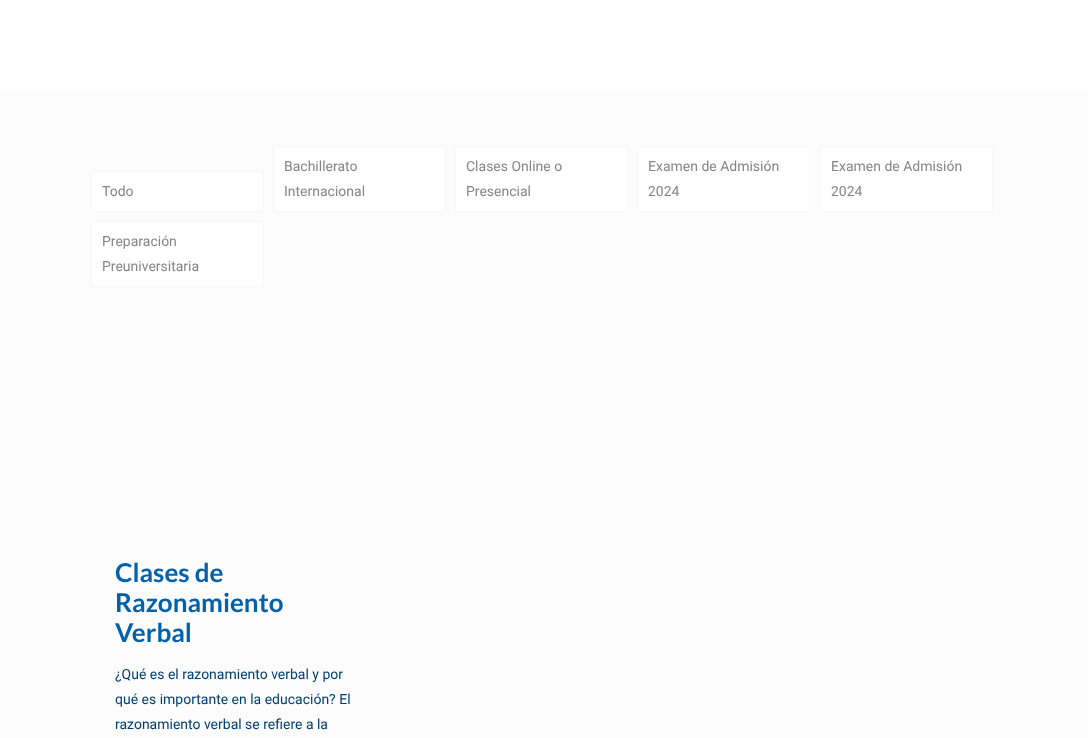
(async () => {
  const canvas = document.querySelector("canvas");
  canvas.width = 1088;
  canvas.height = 738;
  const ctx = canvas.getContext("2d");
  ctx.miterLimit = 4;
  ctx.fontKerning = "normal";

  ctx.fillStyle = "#fcfcfc";
  ctx.fillRect(0, 0, 1088, 738);
  ctx.fillStyle = "#ffffff";
  ctx.fillRect(0, 0, 1088, 91);
  ctx.beginPath();
  ctx.rect(91.5, 171.5, 172, 40);
  ctx.fill();
  ctx.strokeStyle = "#f7f7f7";
  ctx.stroke();
  ctx.beginPath();
  ctx.rect(273.5, 146.5, 172, 65);
  ctx.fill();
  ctx.stroke();
  ctx.beginPath();
  ctx.rect(455.5, 146.5, 172, 65);
  ctx.fill();
  ctx.stroke();
  ctx.beginPath();
  ctx.rect(637.5, 146.5, 172, 65);
  ctx.fill();
  ctx.stroke();
  ctx.beginPath();
  ctx.rect(820.5, 146.5, 172, 65);
  ctx.fill();
  ctx.stroke();
  ctx.beginPath();
  ctx.rect(91.5, 221.5, 172, 65);
  ctx.fill();
  ctx.stroke();
  ctx.font = "14px Roboto";
  ctx.fillStyle = "#858585";
  for (const [text, x, y] of [
    ["Todo", 102, 196],
    ["Bachillerato", 284, 171],
    ["Internacional", 284, 196],
    ["Clases Online o", 466, 171],
    ["Presencial", 466, 196],
    ["Examen de Admisión", 648, 171],
    ["2024", 648, 196],
    ["Examen de Admisión", 831, 171],
    ["2024", 831, 196],
    ["Preparación", 102, 246],
    ["Preuniversitaria", 102, 271],
  ]) {
    ctx.fillText(text, x, y);
  }
  ctx.font = "bold 26px Lato";
  ctx.fillStyle = "#0061ad";
  for (const [text, x, y] of [
    ["Clases de", 115, 582],
    ["Razonamiento", 115, 612],
    ["Verbal", 115, 642],
  ]) {
    ctx.fillText(text, x, y);
  }
  ctx.font = "14px Roboto";
  ctx.fillStyle = "#003e6f";
  for (const [text, x, y] of [
    ["¿Qué es el razonamiento verbal y por", 115, 679],
    ["qué es importante en la educación? El", 115, 704],
    ["razonamiento verbal se refiere a la", 115, 729],
  ]) {
    ctx.fillText(text, x, y);
  }
})();
